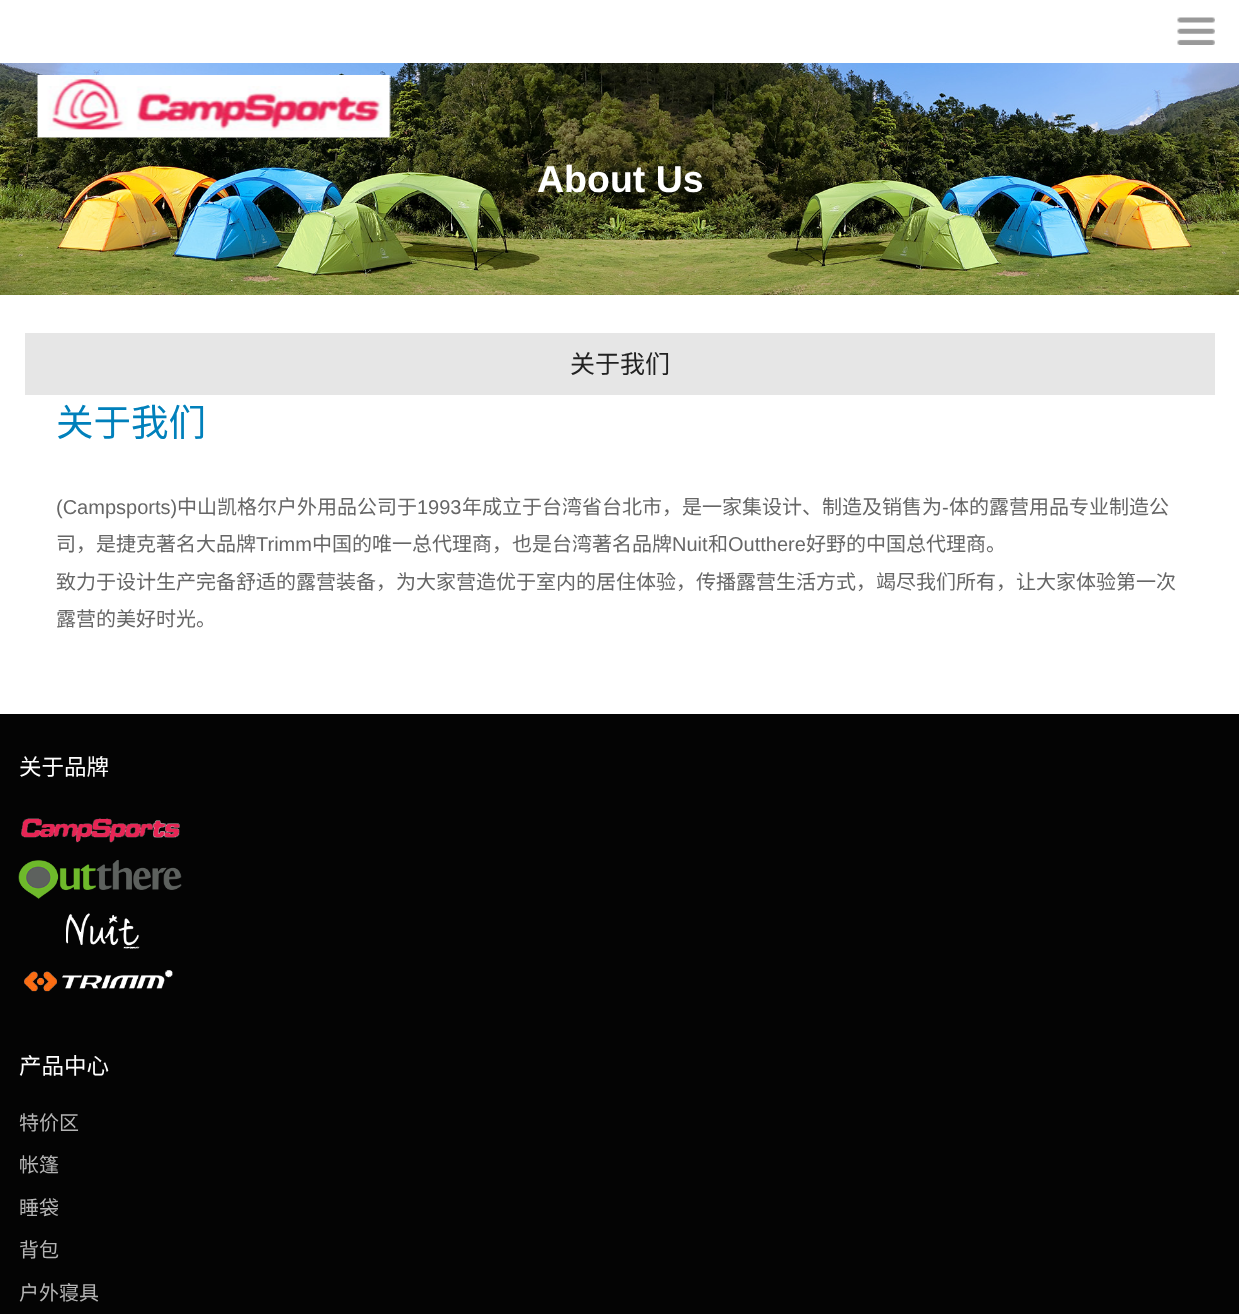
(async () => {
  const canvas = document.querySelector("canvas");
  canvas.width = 1239;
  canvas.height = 1314;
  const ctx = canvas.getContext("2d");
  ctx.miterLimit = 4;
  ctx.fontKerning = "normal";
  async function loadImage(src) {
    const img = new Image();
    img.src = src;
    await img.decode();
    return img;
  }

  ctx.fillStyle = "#ffffff";
  ctx.fillRect(0, 0, 1239, 1314);
  ctx.drawImage(await loadImage("img/1.png"), 1177, 17, 38, 28);
  ctx.drawImage(await loadImage("img/3.png"), 0, 63, 1239, 232);
  ctx.drawImage(await loadImage("img/2.png"), 37, 75, 354, 63);
  ctx.fillStyle = "#e6e6e6";
  ctx.fillRect(25, 333, 1190, 62);
  ctx.fillStyle = "#040404";
  ctx.fillRect(0, 714, 1239, 600);
  ctx.drawImage(await loadImage("img/4.png"), 21, 818, 159, 25);
  ctx.drawImage(await loadImage("img/5.png"), 18, 860, 164, 39);
  ctx.drawImage(await loadImage("img/6.png"), 66, 913, 74, 36);
  ctx.drawImage(await loadImage("img/7.png"), 24, 970, 149, 22);
  ctx.font = "bold 37.5px Liberation Sans";
  ctx.fillStyle = "#ffffff";
  ctx.fillText("About Us", 537, 192);
  ctx.font = "25px Noto Sans CJK SC";
  ctx.fillStyle = "#222222";
  ctx.fillText("关于我们", 570, 373);
  ctx.font = "37.5px Noto Sans CJK SC";
  ctx.fillStyle = "#0080bb";
  ctx.fillText("关于我们", 56, 436);
  ctx.font = "20px Liberation Sans";
  ctx.fillStyle = "#666666";
  ctx.fillText("(Campsports)", 56, 514);
  ctx.font = "20px Noto Sans CJK SC";
  ctx.fillText("中山凯格尔户外用品公司于", 177, 514);
  ctx.font = "20px Liberation Sans";
  ctx.fillText("1993", 417, 514);
  ctx.font = "20px Noto Sans CJK SC";
  ctx.fillText("年成立于台湾省台北市，是一家集设计、制造及销售为", 462, 514);
  ctx.font = "20px Liberation Sans";
  ctx.fillText("-", 942, 514);
  ctx.font = "20px Noto Sans CJK SC";
  ctx.fillText("体的露营用品专业制造公", 949, 514);
  ctx.fillText("司，是捷克著名大品牌", 56, 551);
  ctx.font = "20px Liberation Sans";
  ctx.fillText("Trimm", 256, 551);
  ctx.font = "20px Noto Sans CJK SC";
  ctx.fillText("中国的唯一总代理商，也是台湾著名品牌", 312, 551);
  ctx.font = "20px Liberation Sans";
  ctx.fillText("Nuit", 672, 551);
  ctx.font = "20px Noto Sans CJK SC";
  ctx.fillText("和", 708, 551);
  ctx.font = "20px Liberation Sans";
  ctx.fillText("Outthere", 728, 551);
  ctx.font = "20px Noto Sans CJK SC";
  for (const [text, x, y] of [
    ["好野的中国总代理商。", 806, 551],
    ["致力于设计生产完备舒适的露营装备，为大家营造优于室内的居住体验，传播露营生活方式，竭尽我们所有，让大家体验第一次", 56, 589],
    ["露营的美好时光。", 56, 626],
  ]) {
    ctx.fillText(text, x, y);
  }
  ctx.font = "22.5px Noto Sans CJK SC";
  ctx.fillStyle = "#ffffff";
  ctx.fillText("关于品牌", 19, 775);
  ctx.fillText("产品中心", 19, 1074);
  ctx.font = "20px Noto Sans CJK SC";
  ctx.fillStyle = "#b4b4b4";
  for (const [text, x, y] of [
    ["特价区", 19, 1130],
    ["帐篷", 19, 1172],
    ["睡袋", 19, 1215],
    ["背包", 19, 1257],
    ["户外寝具", 19, 1300],
  ]) {
    ctx.fillText(text, x, y);
  }
})();
